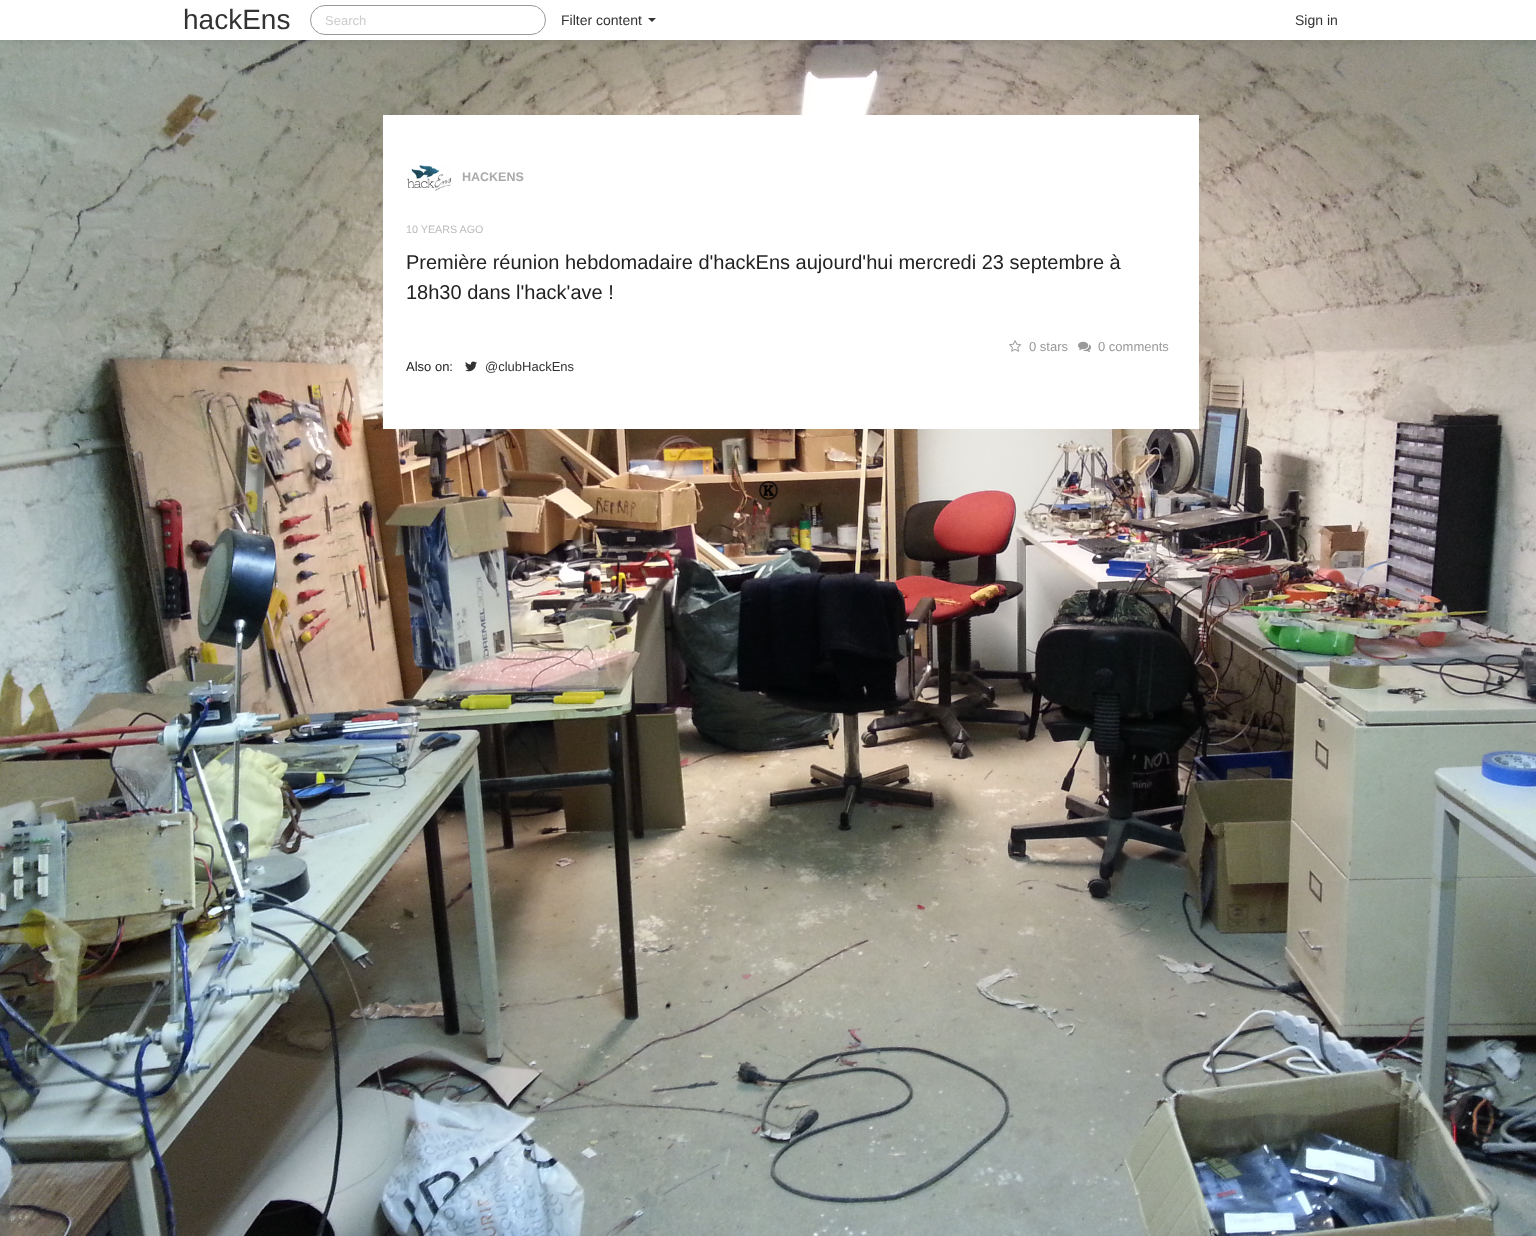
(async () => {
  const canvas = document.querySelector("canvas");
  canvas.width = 1536;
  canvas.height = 1236;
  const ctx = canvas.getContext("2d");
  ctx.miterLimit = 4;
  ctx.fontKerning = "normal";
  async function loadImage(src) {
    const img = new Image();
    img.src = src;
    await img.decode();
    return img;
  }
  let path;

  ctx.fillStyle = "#ffffff";
  ctx.fillRect(0, 0, 1536, 1236);
  ctx.drawImage(await loadImage("img/1.png"), 0, 40, 1536, 1196);
  ctx.fillStyle = "rgba(0, 0, 0, 0.1)";
  ctx.filter = "blur(5px)";
  ctx.beginPath();
  ctx.rect(0, 1, 1536, 40);
  ctx.fill();
  ctx.filter = "none";
  ctx.fillStyle = "#ffffff";
  ctx.fillRect(0, 0, 1536, 40);
  ctx.beginPath();
  ctx.roundRect(310.5, 5.5, 235, 29, 14.5);
  ctx.strokeStyle = "#999999";
  ctx.stroke();
  ctx.fillStyle = "#333333";
  path = new Path2D("M648 18H656L652 22Z");
  ctx.fill(path);
  ctx.fillStyle = "#ffffff";
  ctx.fillRect(383, 115, 816, 314);
  ctx.drawImage(await loadImage("img/2.png"), 407, 165, 45, 26);
  ctx.drawImage(await loadImage("img/3.png"), 1009, 340, 13, 12);
  ctx.drawImage(await loadImage("img/4.png"), 1078, 341, 14, 11);
  ctx.drawImage(await loadImage("img/5.png"), 465, 361, 12, 11);
  ctx.drawImage(await loadImage("img/6.png"), 759, 480, 19, 20);
  ctx.font = "28px Liberation Sans";
  ctx.fillStyle = "#333333";
  ctx.fillText("hackEns", 183, 29);
  ctx.font = "13px Liberation Sans";
  ctx.fillStyle = "#cccccc";
  ctx.fillText("Search", 325, 25);
  ctx.font = "14px Liberation Sans";
  ctx.fillStyle = "#333333";
  ctx.fillText("Filter content", 561, 25);
  ctx.fillText("Sign in", 1295, 25);
  ctx.font = "bold 12.5px Liberation Sans";
  ctx.fillStyle = "#aaaaaa";
  ctx.fillText("HACKENS", 462, 181);
  ctx.font = "10.75px Liberation Sans";
  ctx.fillStyle = "#bbbbbb";
  ctx.fillText("10 YEARS AGO", 406, 233);
  ctx.font = "20px Liberation Sans";
  ctx.fillStyle = "#222222";
  ctx.fillText("Première réunion hebdomadaire d'hackEns aujourd'hui mercredi 23 septembre à", 406, 269);
  ctx.fillText("18h30 dans l'hack'ave !", 406, 299);
  ctx.font = "13px Liberation Sans";
  ctx.fillStyle = "#999999";
  ctx.fillText("0 stars", 1029, 351);
  ctx.fillText("0 comments", 1098, 351);
  ctx.fillStyle = "#222222";
  ctx.fillText("Also on:", 406, 371);
  ctx.fillStyle = "#333333";
  ctx.fillText("@clubHackEns", 485, 371);
})();
